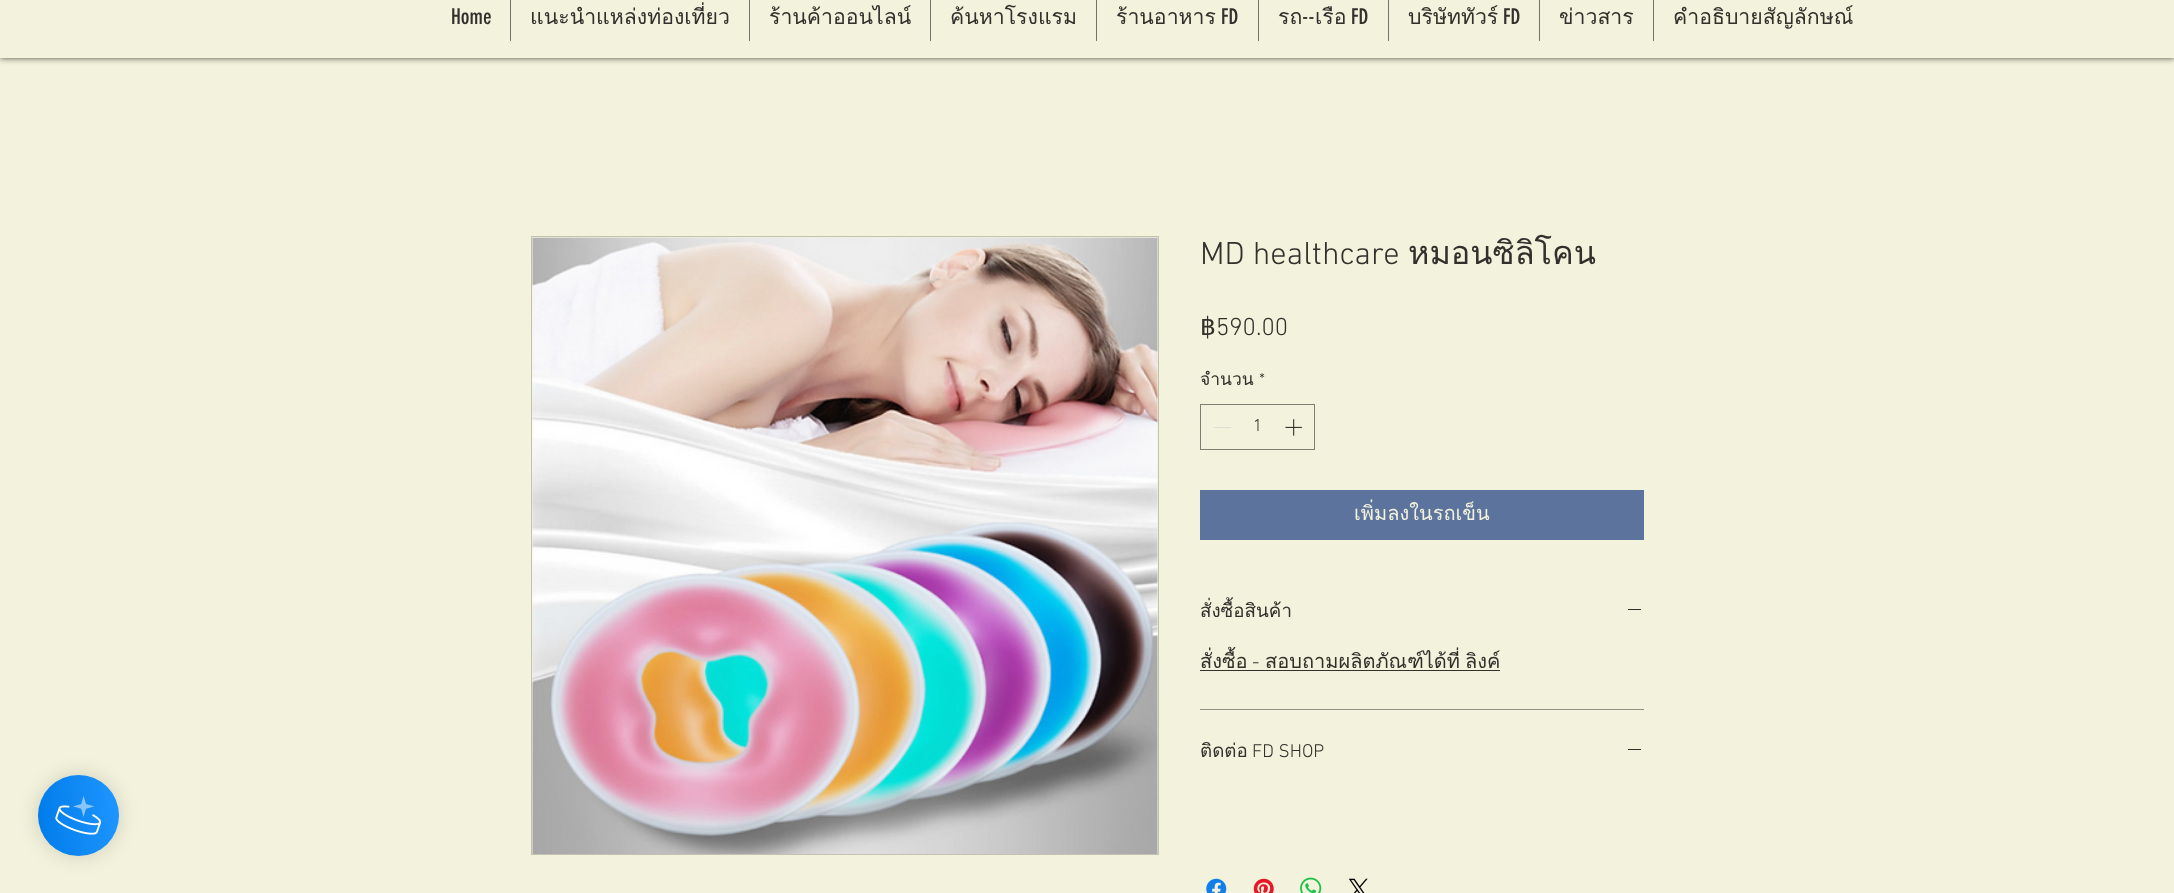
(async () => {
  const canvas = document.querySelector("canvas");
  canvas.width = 2174;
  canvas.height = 893;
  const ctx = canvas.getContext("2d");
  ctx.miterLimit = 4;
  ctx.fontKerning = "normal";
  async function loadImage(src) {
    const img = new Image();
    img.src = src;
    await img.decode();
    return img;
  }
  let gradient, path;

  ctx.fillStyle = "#f3f2dc";
  ctx.fillRect(0, 0, 2174, 893);
  ctx.save();
  path = new Path2D("M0 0H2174V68H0ZM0-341H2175V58H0Z");
  ctx.clip(path, "evenodd");
  ctx.fillStyle = "rgba(0, 0, 0, 0.7)";
  ctx.filter = "blur(3px)";
  ctx.beginPath();
  ctx.rect(0, -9, 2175, 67);
  ctx.fill();
  ctx.filter = "none";
  ctx.restore();
  for (const [x, y, w, h, color] of [
    [0, 57, 2174, 1, "rgba(243, 242, 220, 0.64)"],
    [510, 0, 1, 41, "#737268"],
    [749, 0, 1, 41, "#737268"],
    [930, 0, 1, 41, "#737268"],
    [1096, 0, 1, 41, "#737268"],
    [1258, 0, 1, 41, "#737268"],
    [1388, 0, 1, 41, "#737268"],
    [1539, 0, 1, 41, "#737268"],
    [1653, 0, 1, 41, "#737268"],
  ]) {
    ctx.fillStyle = color;
    ctx.fillRect(x, y, w, h);
  }
  ctx.strokeStyle = "#c2c2b0";
  ctx.strokeRect(531.5, 236.5, 627, 618);
  ctx.drawImage(await loadImage("img/1.png"), 532, 237, 626, 617);
  ctx.strokeStyle = "#7f7e72";
  ctx.strokeRect(1200.5, 404.5, 114, 45);
  ctx.fillStyle = "#ddddd2";
  ctx.fillRect(1214, 427, 17, 1);
  ctx.drawImage(await loadImage("img/2.png"), 1285, 419, 17, 17);
  for (const [x, y, w, h, color] of [
    [1200, 490, 444, 50, "#5c739d"],
    [1200, 709, 444, 1, "#929184"],
    [1628, 609, 13, 1, "#31302c"],
    [1200, 670, 300, 1, "#31302c"],
    [1628, 749, 13, 1, "#31302c"],
  ]) {
    ctx.fillStyle = color;
    ctx.fillRect(x, y, w, h);
  }
  ctx.drawImage(await loadImage("img/3.png"), 1206, 878, 21, 15);
  ctx.drawImage(await loadImage("img/4.png"), 1253, 878, 21, 15);
  ctx.drawImage(await loadImage("img/5.png"), 1300, 877, 22, 16);
  ctx.drawImage(await loadImage("img/6.png"), 1348, 878, 20, 15);
  ctx.fillStyle = "rgba(0, 0, 0, 0.15)";
  ctx.filter = "blur(10px)";
  ctx.beginPath();
  ctx.roundRect(38, 775, 81, 81, 40.5);
  ctx.fill();
  ctx.filter = "none";
  gradient = ctx.createLinearGradient(123, 811, 34, 821);
  gradient.addColorStop(0.05, "#1e95ff");
  gradient.addColorStop(0.97, "#007cea");
  ctx.fillStyle = gradient;
  ctx.beginPath();
  ctx.arc(78.5, 815.5, 40.5, 0, Math.PI * 2);
  ctx.fill();
  ctx.drawImage(await loadImage("img/7.png"), 55, 796, 47, 39);
  ctx.font = "21.25px 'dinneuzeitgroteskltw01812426'";
  ctx.fillStyle = "#31302c";
  ctx.fillText("Home", 451, 24);
  ctx.font = "21.25px Loma";
  for (const [text, x, y] of [
    ["แนะนำแหล่งท่องเที่ยว", 530, 24],
    ["ร้านค้าออนไลน์", 769, 24],
    ["ค้นหาโรงแรม", 950, 24],
    ["ร้านอาหาร", 1116, 24],
  ]) {
    ctx.fillText(text, x, y);
  }
  ctx.font = "21.25px 'dinneuzeitgroteskltw01812426'";
  ctx.fillText("FD", 1221, 24);
  ctx.font = "21.25px Loma";
  ctx.fillText("รถ", 1278, 24);
  ctx.font = "21.25px 'dinneuzeitgroteskltw01812426'";
  ctx.fillText("--", 1302, 24);
  ctx.font = "21.25px Loma";
  ctx.fillText("เรือ", 1315, 24);
  ctx.font = "21.25px 'dinneuzeitgroteskltw01812426'";
  ctx.fillText("FD", 1351, 24);
  ctx.font = "21.25px Loma";
  ctx.fillText("บริษัททัวร์", 1408, 24);
  ctx.font = "21.25px 'dinneuzeitgroteskltw01812426'";
  ctx.fillText("FD", 1503, 24);
  ctx.font = "21.25px Loma";
  ctx.fillText("ข่าวสาร", 1559, 24);
  ctx.fillText("คำอธิบายสัญลักษณ์", 1673, 24);
  ctx.font = "300 32.5px 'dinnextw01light'";
  ctx.fillText("MD healthcare", 1200, 264);
  ctx.font = "32.5px Loma";
  ctx.fillText("หมอนซิลิโคน", 1408, 264);
  ctx.font = "25px DejaVu Sans";
  ctx.fillText("฿", 1200, 335);
  ctx.font = "300 25px 'dinnextw01light'";
  ctx.fillText("590.00", 1216, 335);
  ctx.font = "17.5px Loma";
  ctx.fillText("จำนวน", 1200, 385);
  ctx.font = "300 17.5px 'dinnextw01light'";
  ctx.fillText("*", 1259, 385);
  ctx.fillText("1", 1253, 431);
  ctx.font = "20px Loma";
  ctx.fillStyle = "#f3f2dc";
  ctx.fillText("เพิ่มลงในรถเข็น", 1354, 520);
  ctx.font = "18.75px Loma";
  ctx.fillStyle = "#31302c";
  ctx.fillText("สั่งซื้อสินค้า", 1200, 617);
  ctx.font = "20px Loma";
  ctx.fillText("สั่งซื้อ", 1200, 668);
  ctx.font = "300 20px 'dinnextw01light'";
  ctx.fillText("-", 1252, 668);
  ctx.font = "20px Loma";
  ctx.fillText("สอบถามผลิตภัณฑ์ได้ที่", 1265, 668);
  ctx.fillText("ลิงค์", 1465, 668);
  ctx.font = "18.75px Loma";
  ctx.fillText("ติดต่อ", 1200, 757);
  ctx.font = "300 18.75px 'dinnextw01light'";
  ctx.fillText("FD SHOP", 1252, 757);
})();
